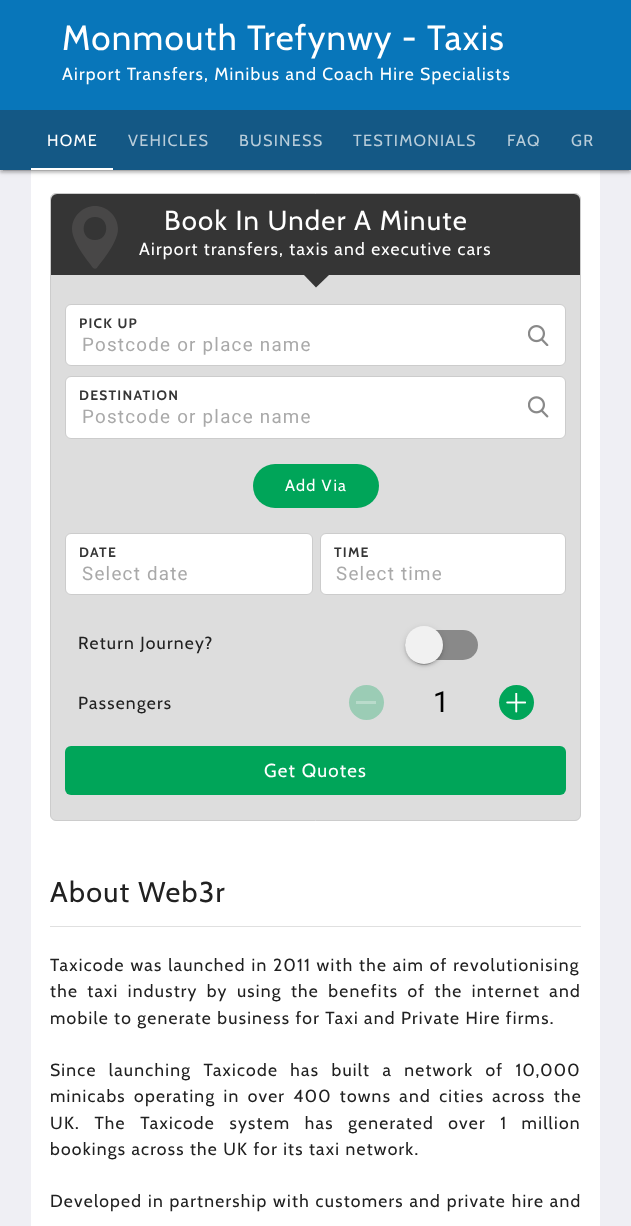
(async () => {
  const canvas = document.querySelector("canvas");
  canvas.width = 631;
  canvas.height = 1226;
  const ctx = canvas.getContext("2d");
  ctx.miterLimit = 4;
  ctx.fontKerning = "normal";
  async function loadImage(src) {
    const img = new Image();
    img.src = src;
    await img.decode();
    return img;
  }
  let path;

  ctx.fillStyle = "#efeff4";
  ctx.fillRect(0, 0, 631, 1226);
  ctx.fillStyle = "#ffffff";
  ctx.fillRect(31, 170, 569, 1056);
  ctx.fillStyle = "rgba(0, 0, 0, 0.2)";
  ctx.filter = "blur(3px)";
  ctx.beginPath();
  ctx.rect(0, 1, 631, 170);
  ctx.fill();
  ctx.filter = "none";
  ctx.fillStyle = "rgba(0, 0, 0, 0.12)";
  ctx.filter = "blur(0.5px)";
  ctx.beginPath();
  ctx.rect(3, 6, 626, 165);
  ctx.fill();
  ctx.filter = "none";
  ctx.fillStyle = "rgba(0, 0, 0, 0.14)";
  ctx.filter = "blur(1px)";
  ctx.beginPath();
  ctx.rect(0, 3, 631, 170);
  ctx.fill();
  ctx.filter = "none";
  for (const [x, y, w, h, color] of [
    [0, 0, 631, 110, "#0876ba"],
    [0, 110, 631, 60, "#145885"],
    [31, 168, 82, 2, "#ffffff"],
  ]) {
    ctx.fillStyle = color;
    ctx.fillRect(x, y, w, h);
  }
  ctx.fillStyle = "#dddddd";
  ctx.beginPath();
  ctx.roundRect(50.5, 193.5, 530, 627, 5.5);
  ctx.fill();
  ctx.strokeStyle = "#cccccc";
  ctx.stroke();
  ctx.fillStyle = "#353535";
  ctx.beginPath();
  ctx.roundRect(51, 194, 529, 81, [6, 6, 0, 0]);
  ctx.fill();
  ctx.fillStyle = "#484747";
  path = new Path2D("M95 206C83 206 72 216 72 229C72 244 93 267 93 268C94 269 96 269 97 268C97 267 118 244 118 229C118 216 107 206 95 206ZM95 240C80 240 80 217 95 217C110 217 110 240 95 240Z");
  ctx.fill(path);
  ctx.fillStyle = "#353535";
  path = new Path2D("M304 275H329L316 287.5Z");
  ctx.fill(path);
  ctx.fillStyle = "#ffffff";
  ctx.beginPath();
  ctx.roundRect(65.5, 304.5, 500, 61, 5.5);
  ctx.fill();
  ctx.stroke();
  ctx.drawImage(await loadImage("img/1.png"), 528, 325, 21, 21);
  ctx.beginPath();
  ctx.roundRect(65.5, 376.5, 500, 62, 5.5);
  ctx.fill();
  ctx.stroke();
  ctx.drawImage(await loadImage("img/2.png"), 528, 396, 21, 22);
  ctx.fillStyle = "#00a559";
  ctx.beginPath();
  ctx.roundRect(253, 464, 126, 44, 22);
  ctx.fill();
  ctx.fillStyle = "#ffffff";
  ctx.beginPath();
  ctx.roundRect(65.5, 533.5, 247, 61, 5.5);
  ctx.fill();
  ctx.stroke();
  ctx.beginPath();
  ctx.roundRect(320.5, 533.5, 245, 61, 5.5);
  ctx.fill();
  ctx.stroke();
  ctx.fillStyle = "#898989";
  ctx.beginPath();
  ctx.roundRect(405, 630, 73, 30, 15);
  ctx.fill();
  ctx.fillStyle = "rgba(0, 0, 0, 0.12)";
  ctx.filter = "blur(3px)";
  ctx.beginPath();
  ctx.roundRect(405, 628, 38, 37, 18.5);
  ctx.fill();
  ctx.filter = "none";
  ctx.fillStyle = "rgba(0, 0, 0, 0.14)";
  ctx.filter = "blur(1px)";
  ctx.beginPath();
  ctx.roundRect(405, 629, 38, 37, 18.5);
  ctx.fill();
  ctx.filter = "none";
  ctx.fillStyle = "rgba(0, 0, 0, 0.2)";
  ctx.filter = "blur(0.5px)";
  ctx.beginPath();
  ctx.roundRect(408, 633, 32, 32, 16);
  ctx.fill();
  ctx.filter = "none";
  ctx.fillStyle = "#f1f1f1";
  ctx.beginPath();
  ctx.arc(424, 645, 19, 0, Math.PI * 2);
  ctx.fill();
  ctx.fillStyle = "#9bccb5";
  ctx.beginPath();
  ctx.arc(366.5, 702.5, 17.5, 0, Math.PI * 2);
  ctx.fill();
  ctx.fillStyle = "#b9dbcb";
  ctx.fillRect(356, 701, 20, 3);
  ctx.fillStyle = "#00a559";
  ctx.beginPath();
  ctx.arc(516.5, 702.5, 17.5, 0, Math.PI * 2);
  ctx.fill();
  ctx.drawImage(await loadImage("img/3.png"), 506, 693, 20, 20);
  ctx.beginPath();
  ctx.roundRect(65, 746, 501, 49, 6);
  ctx.fill();
  ctx.fillStyle = "#e0e0e0";
  ctx.fillRect(50, 926, 531, 1);
  ctx.letterSpacing = "1.25px";
  ctx.font = "35px Cabin";
  ctx.fillStyle = "#ffffff";
  ctx.fillText("Monmouth Trefynwy - Taxis", 62, 50);
  ctx.font = "17.5px Cabin";
  ctx.fillText("Airport Transfers, Minibus and Coach Hire Specialists", 62, 80);
  ctx.font = "16.25px Cabin";
  ctx.fillText("HOME", 47, 146);
  ctx.fillStyle = "#b9cdda";
  for (const [text, x, y] of [
    ["VEHICLES", 128, 146],
    ["BUSINESS", 239, 146],
    ["TESTIMONIALS", 353, 146],
    ["FAQ", 507, 146],
    ["GR", 571, 146],
  ]) {
    ctx.fillText(text, x, y);
  }
  ctx.font = "27.5px Cabin";
  ctx.fillStyle = "#ffffff";
  ctx.fillText("Book In Under A Minute", 164, 230);
  ctx.font = "17.5px Cabin";
  ctx.fillText("Airport transfers, taxis and executive cars", 139, 255);
  ctx.font = "bold 13.75px Cabin";
  ctx.fillStyle = "#353535";
  ctx.fillText("PICK UP", 79, 328);
  ctx.font = "18.75px Roboto";
  ctx.fillStyle = "#a9a9a9";
  ctx.fillText("Postcode or place name", 82, 351);
  ctx.font = "bold 13.75px Cabin";
  ctx.fillStyle = "#353535";
  ctx.fillText("DESTINATION", 79, 400);
  ctx.font = "18.75px Roboto";
  ctx.fillStyle = "#a9a9a9";
  ctx.fillText("Postcode or place name", 82, 423);
  ctx.font = "16.25px Cabin";
  ctx.fillStyle = "#ffffff";
  ctx.fillText("Add Via", 285, 491);
  ctx.font = "bold 13.75px Cabin";
  ctx.fillStyle = "#353535";
  ctx.fillText("DATE", 79, 557);
  ctx.font = "18.75px Roboto";
  ctx.fillStyle = "#a9a9a9";
  ctx.fillText("Select date", 82, 580);
  ctx.font = "bold 13.75px Cabin";
  ctx.fillStyle = "#353535";
  ctx.fillText("TIME", 334, 557);
  ctx.font = "18.75px Roboto";
  ctx.fillStyle = "#a9a9a9";
  ctx.fillText("Select time", 336, 580);
  ctx.font = "17.5px Cabin";
  ctx.fillStyle = "#212121";
  ctx.fillText("Return Journey?", 78, 649);
  ctx.fillText("Passengers", 78, 709);
  ctx.letterSpacing = "0px";
  ctx.font = "29px Roboto";
  ctx.fillStyle = "#000000";
  ctx.fillText("1", 433, 712);
  ctx.letterSpacing = "1.25px";
  ctx.font = "18.75px Cabin";
  ctx.fillStyle = "#ffffff";
  ctx.fillText("Get Quotes", 264, 777);
  ctx.font = "28.75px Cabin";
  ctx.fillStyle = "#212121";
  ctx.fillText("About Web3r", 50, 902);
  ctx.wordSpacing = "0.5px";
  ctx.font = "17.5px Cabin";
  ctx.fillText("Taxicode was launched in 2011 with the aim of revolutionising", 50, 971);
  ctx.wordSpacing = "4px";
  ctx.fillText("the taxi industry by using the benefits of the internet and", 50, 997);
  ctx.wordSpacing = "0px";
  ctx.fillText("mobile to generate business for Taxi and Private Hire firms.", 50, 1024);
  ctx.wordSpacing = "7px";
  ctx.fillText("Since launching Taxicode has built a network of 10,000", 50, 1076);
  ctx.wordSpacing = "3px";
  ctx.fillText("minicabs operating in over 400 towns and cities across the", 50, 1102);
  ctx.wordSpacing = "9.25px";
  ctx.fillText("UK. The Taxicode system has generated over 1 million", 50, 1129);
  ctx.wordSpacing = "0px";
  ctx.fillText("bookings across the UK for its taxi network.", 50, 1155);
  ctx.wordSpacing = "0.5px";
  ctx.fillText("Developed in partnership with customers and private hire and", 50, 1207);
})();
